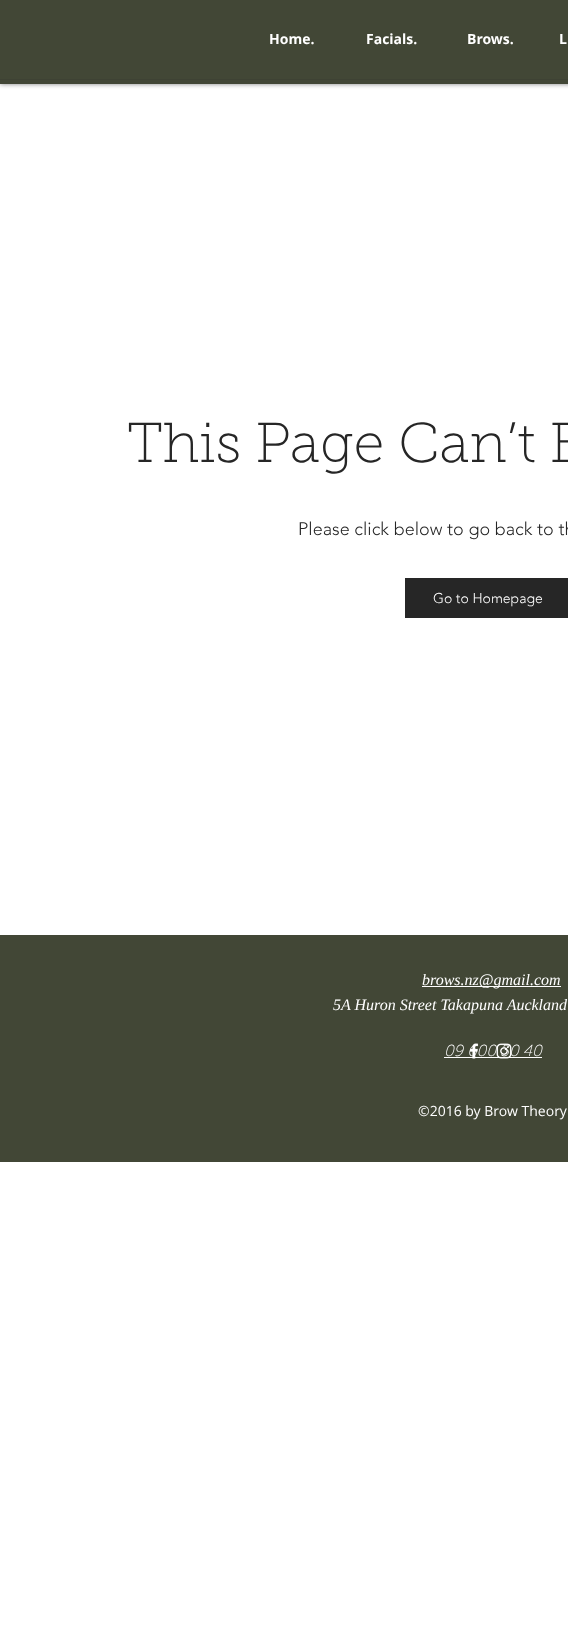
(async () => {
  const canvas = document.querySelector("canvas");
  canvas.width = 568;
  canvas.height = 1648;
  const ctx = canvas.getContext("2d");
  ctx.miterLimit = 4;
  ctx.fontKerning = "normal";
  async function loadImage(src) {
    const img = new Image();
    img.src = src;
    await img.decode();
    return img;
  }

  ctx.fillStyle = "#ffffff";
  ctx.fillRect(0, 0, 568, 1648);
  ctx.fillStyle = "rgba(0, 0, 0, 0.5)";
  ctx.filter = "blur(2.5px)";
  ctx.beginPath();
  ctx.rect(0, 0, 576, 84);
  ctx.fill();
  ctx.filter = "none";
  for (const [x, y, w, h, color] of [
    [0, 0, 568, 84, "#424736"],
    [0, 79, 568, 1, "#3e4234"],
    [405, 578, 163, 40, "#262626"],
    [0, 935, 568, 227, "#424736"],
    [422, 986, 139, 1, "#ffffff"],
  ]) {
    ctx.fillStyle = color;
    ctx.fillRect(x, y, w, h);
  }
  ctx.drawImage(await loadImage("img/1.png"), 470, 1043, 9, 16);
  ctx.drawImage(await loadImage("img/2.png"), 496, 1043, 16, 16);
  ctx.fillRect(444, 1057, 98, 1);
  ctx.font = "bold 14px Open Sans";
  for (const [text, x, y] of [
    ["Home.", 269, 44],
    ["Facials.", 366, 44],
    ["Brows.", 467, 44],
    ["L", 559, 44],
  ]) {
    ctx.fillText(text, x, y);
  }
  ctx.font = "100 56px 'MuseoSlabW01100'";
  ctx.fillStyle = "#262626";
  ctx.fillText("This Page Can’t B", 127, 462);
  ctx.font = "300 18px 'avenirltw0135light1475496'";
  ctx.fillText("Please click below to go back to th", 298, 535);
  ctx.font = "300 14px 'avenirltw0135light1475496'";
  ctx.fillStyle = "#ffffff";
  ctx.fillText("Go to Homepage", 433, 603);
  ctx.font = "italic 16px Liberation Serif";
  ctx.fillText("brows.nz@gmail.com", 422, 985);
  ctx.fillText("5A Huron Street Takapuna Auckland", 333, 1010);
  ctx.font = "14px Open Sans";
  ctx.fillText("©2016 by Brow Theory", 418, 1116);
  ctx.font = "italic 100 16px 'MuseoSlabW01100'";
  ctx.fillText("09 600 30 40", 444, 1056);
})();
